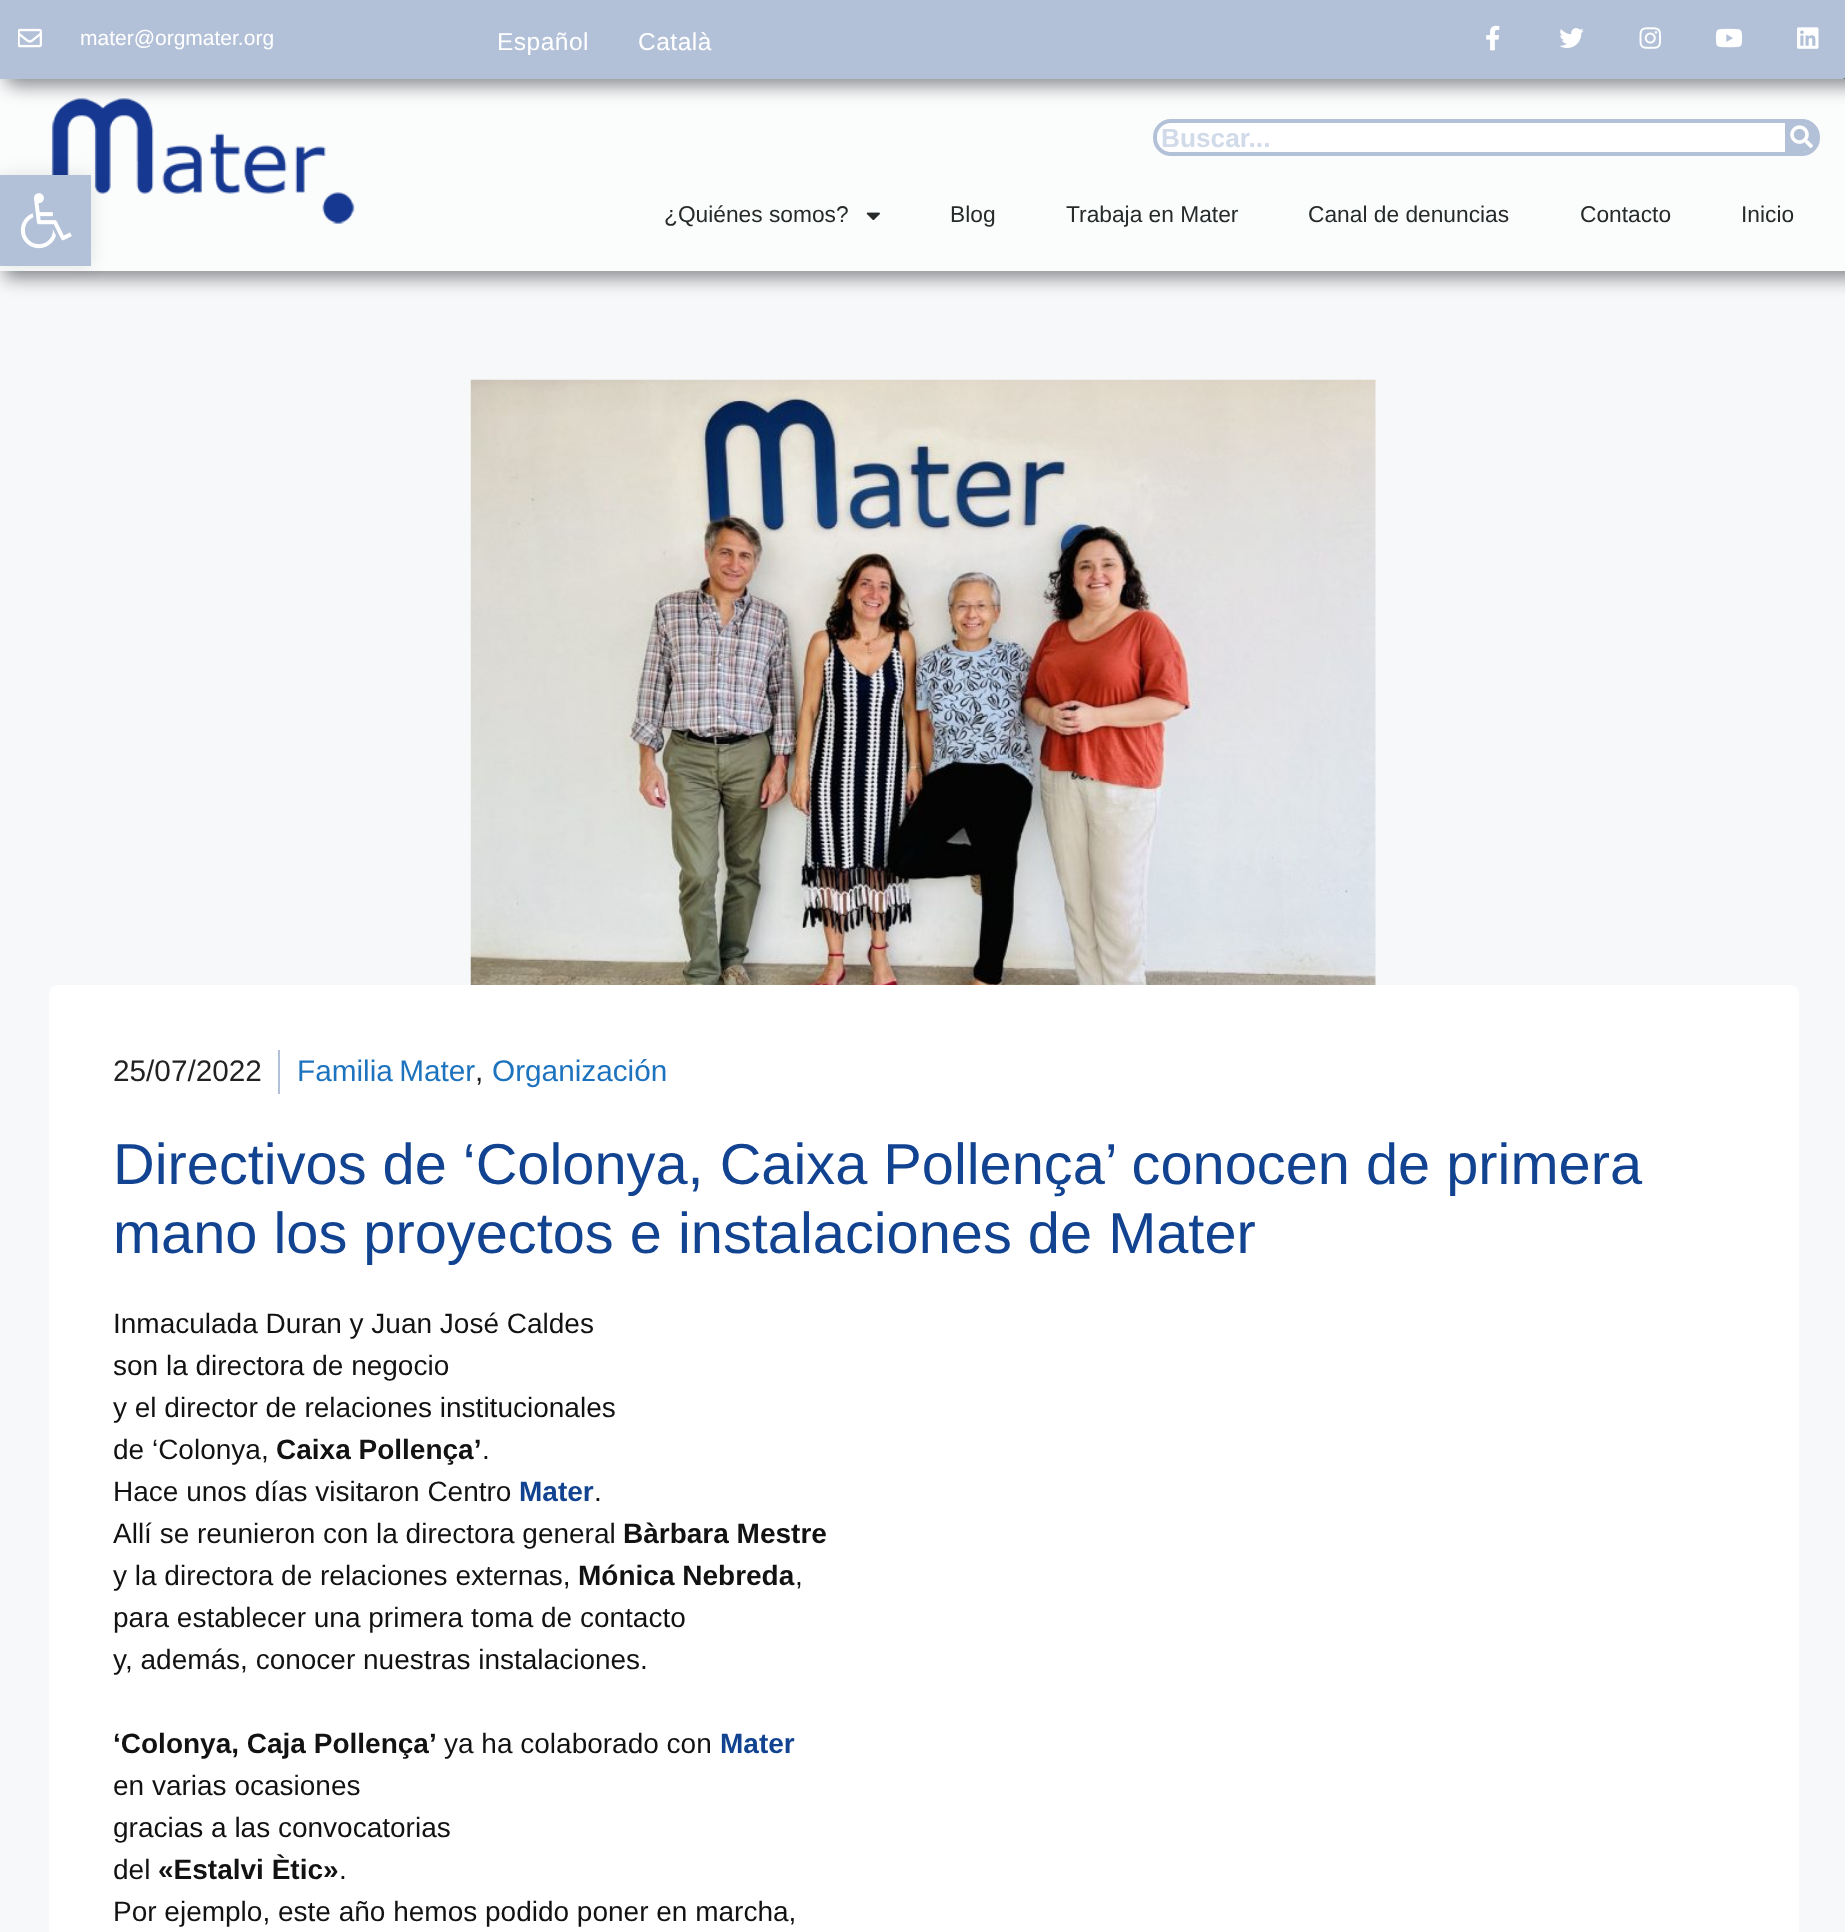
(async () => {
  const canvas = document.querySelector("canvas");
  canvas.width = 1845;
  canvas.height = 1932;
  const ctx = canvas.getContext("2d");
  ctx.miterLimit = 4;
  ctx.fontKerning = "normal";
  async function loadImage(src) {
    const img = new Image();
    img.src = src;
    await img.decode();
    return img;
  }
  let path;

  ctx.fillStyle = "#f7f8f9";
  ctx.fillRect(0, 0, 1845, 1932);
  ctx.fillStyle = "rgba(1, 4, 13, 0.45)";
  ctx.filter = "blur(9px)";
  ctx.beginPath();
  ctx.rect(5, 72, 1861, 206);
  ctx.fill();
  ctx.filter = "none";
  ctx.fillStyle = "#fbfcfc";
  ctx.fillRect(0, 79, 1845, 192);
  ctx.drawImage(await loadImage("img/8.png"), 51, 98, 304, 126);
  ctx.fillStyle = "rgba(0, 0, 0, 0.1)";
  ctx.filter = "blur(9px)";
  ctx.beginPath();
  ctx.rect(0, 175, 91, 91);
  ctx.fill();
  ctx.filter = "none";
  ctx.fillStyle = "#b3c1d8";
  ctx.fillRect(0, 175, 91, 91);
  ctx.drawImage(await loadImage("img/1.png"), 20, 193, 52, 56);
  ctx.fillStyle = "rgba(1, 4, 13, 0.45)";
  ctx.filter = "blur(9px)";
  ctx.beginPath();
  ctx.roundRect(5, -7, 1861, 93, 11);
  ctx.fill();
  ctx.filter = "none";
  ctx.fillStyle = "#b3c1d8";
  path = new Path2D("M0 0H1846V75C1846 77 1844 79 1842 79H0Z");
  ctx.fill(path);
  ctx.drawImage(await loadImage("img/2.png"), 18, 28, 24, 20);
  ctx.drawImage(await loadImage("img/3.png"), 1486, 25, 14, 26);
  ctx.drawImage(await loadImage("img/4.png"), 1559, 28, 25, 20);
  ctx.drawImage(await loadImage("img/5.png"), 1639, 27, 22, 22);
  ctx.drawImage(await loadImage("img/6.png"), 1715, 28, 28, 20);
  ctx.drawImage(await loadImage("img/7.png"), 1797, 27, 22, 22);
  ctx.fillStyle = "#ffffff";
  ctx.beginPath();
  ctx.roundRect(1155, 121, 663, 33, 16);
  ctx.fill();
  ctx.strokeStyle = "#b3c1d8";
  ctx.lineWidth = 4;
  ctx.stroke();
  ctx.fillStyle = "#b3c1d8";
  ctx.beginPath();
  ctx.roundRect(1785, 123, 32, 29, [0, 14, 14, 0]);
  ctx.fill();
  ctx.drawImage(await loadImage("img/9.png"), 1790, 125, 23, 23);
  ctx.drawImage(await loadImage("img/10.png"), 866, 212, 14, 9);
  ctx.drawImage(await loadImage("img/11.png"), 470, 379, 906, 606);
  ctx.fillStyle = "#ffffff";
  ctx.beginPath();
  ctx.roundRect(49, 985, 1750, 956, 9);
  ctx.fill();
  ctx.fillStyle = "#b3c1d8";
  ctx.fillRect(278, 1050, 2, 44);
  ctx.font = "21px Liberation Sans";
  ctx.fillStyle = "#ffffff";
  ctx.fillText("mater@orgmater.org", 80, 45);
  ctx.letterSpacing = "0.5px";
  ctx.font = "24.5px Liberation Sans";
  ctx.fillText("Español", 497, 50);
  ctx.fillText("Català", 638, 50);
  ctx.letterSpacing = "0px";
  ctx.font = "bold 26.25px Liberation Sans";
  ctx.fillStyle = "#d1dae8";
  ctx.fillText("Buscar...", 1161, 147);
  ctx.font = "22.75px Liberation Sans";
  ctx.fillStyle = "#262a2b";
  for (const [text, x, y] of [
    ["¿Quiénes somos?", 664, 222],
    ["Blog", 950, 222],
    ["Trabaja en Mater", 1066, 222],
    ["Canal de denuncias", 1308, 222],
    ["Contacto", 1580, 222],
    ["Inicio", 1741, 222],
  ]) {
    ctx.fillText(text, x, y);
  }
  ctx.font = "29.75px Liberation Sans";
  ctx.fillStyle = "#222222";
  ctx.fillText("25/07/2022", 113, 1081);
  ctx.wordSpacing = "-2px";
  ctx.fillStyle = "#1e73be";
  ctx.fillText("Familia Mater", 297, 1081);
  ctx.wordSpacing = "0px";
  ctx.fillStyle = "#222222";
  ctx.fillText(",", 475, 1081);
  ctx.fillStyle = "#1e73be";
  ctx.fillText("Organización", 492, 1081);
  ctx.font = "57.75px Liberation Sans";
  ctx.fillStyle = "#114391";
  ctx.fillText("Directivos de ‘Colonya, Caixa Pollença’ conocen de primera", 113, 1184);
  ctx.fillText("mano los proyectos e instalaciones de Mater", 113, 1253);
  ctx.font = "28px Liberation Sans";
  ctx.fillStyle = "#121212";
  for (const [text, x, y] of [
    ["Inmaculada Duran y Juan José Caldes", 113, 1333],
    ["son la directora de negocio", 113, 1375],
    ["y el director de relaciones institucionales", 113, 1417],
    ["de ‘Colonya,", 113, 1459],
  ]) {
    ctx.fillText(text, x, y);
  }
  ctx.font = "bold 28px Liberation Sans";
  ctx.fillText("Caixa Pollença’", 276, 1459);
  ctx.font = "28px Liberation Sans";
  ctx.fillText(".", 482, 1459);
  ctx.fillText("Hace unos días visitaron Centro", 113, 1501);
  ctx.font = "bold 28px Liberation Sans";
  ctx.fillStyle = "#114391";
  ctx.fillText("Mater", 519, 1501);
  ctx.font = "28px Liberation Sans";
  ctx.fillStyle = "#121212";
  ctx.fillText(".", 594, 1501);
  ctx.fillText("Allí se reunieron con la directora general", 113, 1543);
  ctx.font = "bold 28px Liberation Sans";
  ctx.fillText("Bàrbara Mestre", 623, 1543);
  ctx.font = "28px Liberation Sans";
  ctx.fillText("y la directora de relaciones externas,", 113, 1585);
  ctx.font = "bold 28px Liberation Sans";
  ctx.fillText("Mónica Nebreda", 578, 1585);
  ctx.font = "28px Liberation Sans";
  for (const [text, x, y] of [
    [",", 795, 1585],
    ["para establecer una primera toma de contacto", 113, 1627],
    ["y, además, conocer nuestras instalaciones.", 113, 1669],
  ]) {
    ctx.fillText(text, x, y);
  }
  ctx.font = "bold 28px Liberation Sans";
  ctx.fillText("‘Colonya, Caja Pollença’", 113, 1753);
  ctx.font = "28px Liberation Sans";
  ctx.fillText("ya ha colaborado con", 444, 1753);
  ctx.font = "bold 28px Liberation Sans";
  ctx.fillStyle = "#114391";
  ctx.fillText("Mater", 720, 1753);
  ctx.font = "28px Liberation Sans";
  ctx.fillStyle = "#121212";
  for (const [text, x, y] of [
    ["en varias ocasiones", 113, 1795],
    ["gracias a las convocatorias", 113, 1837],
    ["del", 113, 1879],
  ]) {
    ctx.fillText(text, x, y);
  }
  ctx.font = "bold 28px Liberation Sans";
  ctx.fillText("«Estalvi Ètic»", 158, 1879);
  ctx.font = "28px Liberation Sans";
  ctx.fillText(".", 339, 1879);
  ctx.fillText("Por ejemplo, este año hemos podido poner en marcha,", 113, 1921);
})();
